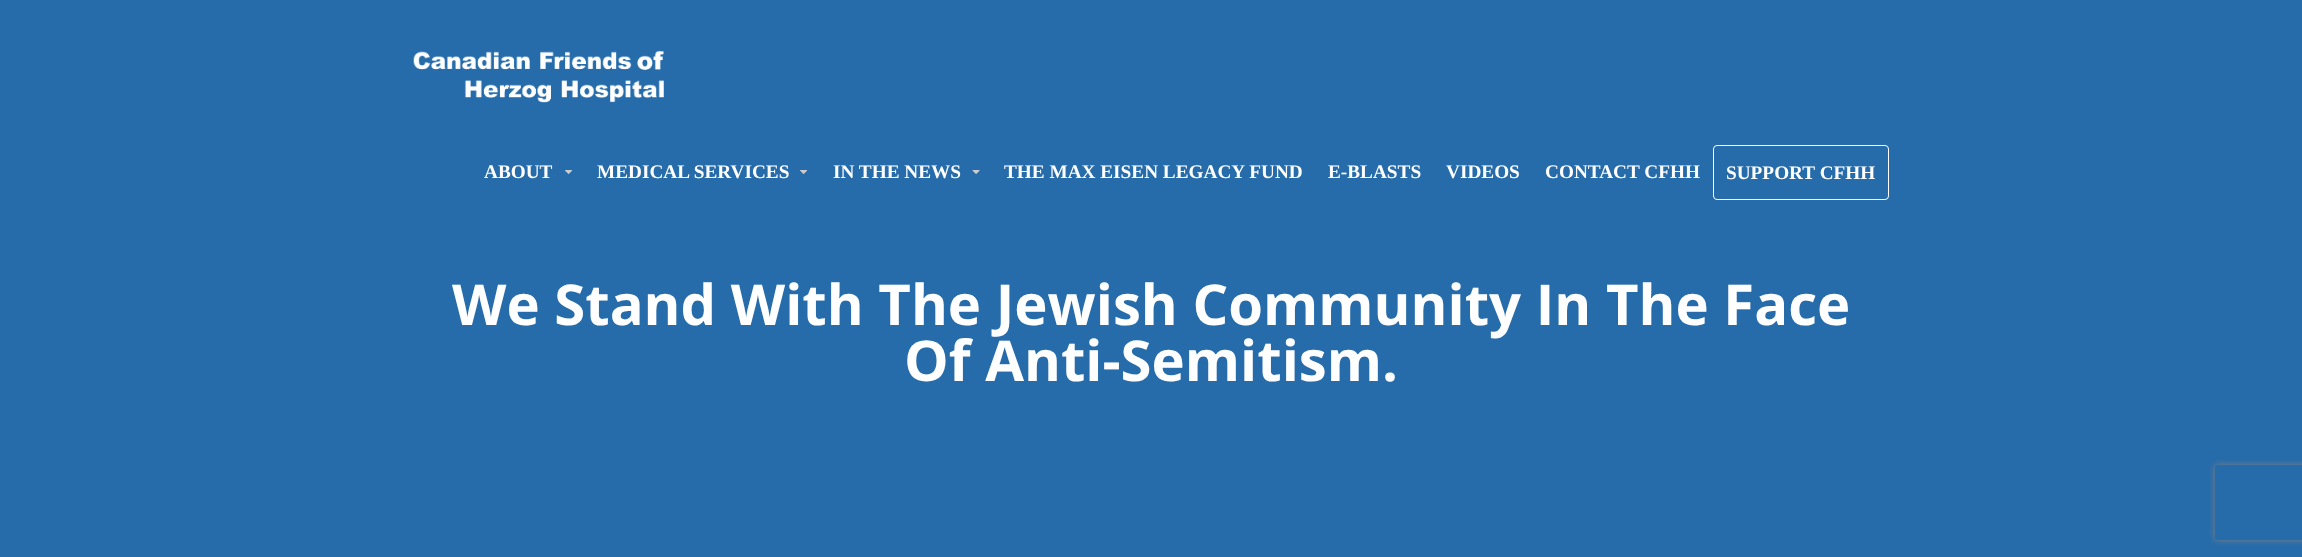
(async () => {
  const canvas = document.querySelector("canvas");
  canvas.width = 2302;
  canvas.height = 557;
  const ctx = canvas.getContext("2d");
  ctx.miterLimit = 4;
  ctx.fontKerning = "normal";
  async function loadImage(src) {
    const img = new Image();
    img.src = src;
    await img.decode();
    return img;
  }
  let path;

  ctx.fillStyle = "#266cab";
  ctx.fillRect(0, 0, 2302, 557);
  ctx.drawImage(await loadImage("img/1.png"), 413, 50, 251, 53);
  ctx.drawImage(await loadImage("img/2.png"), 565, 170, 8, 4);
  ctx.drawImage(await loadImage("img/2.png"), 800, 170, 8, 4);
  ctx.drawImage(await loadImage("img/3.png"), 972, 170, 8, 4);
  ctx.beginPath();
  ctx.roundRect(1713.5, 145.5, 175, 54, 3.5);
  ctx.strokeStyle = "#ffffff";
  ctx.stroke();
  ctx.save();
  path = new Path2D("M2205 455H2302V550H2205ZM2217.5 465H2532.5C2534 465 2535 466 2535 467.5V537.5C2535 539 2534 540 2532.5 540H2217.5C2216 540 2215 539 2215 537.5V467.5C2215 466 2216 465 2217.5 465Z");
  ctx.clip(path, "evenodd");
  ctx.fillStyle = "#808080";
  ctx.filter = "blur(3px)";
  ctx.beginPath();
  ctx.roundRect(2215, 465, 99, 75, 2.5);
  ctx.fill();
  ctx.filter = "none";
  ctx.restore();
  ctx.font = "bold 19.25px Liberation Serif";
  ctx.fillStyle = "#ffffff";
  for (const [text, x, y] of [
    ["ABOUT", 484, 178],
    ["MEDICAL SERVICES", 597, 178],
    ["IN THE NEWS", 833, 178],
    ["THE MAX EISEN LEGACY FUND", 1004, 178],
    ["E-BLASTS", 1328, 178],
    ["VIDEOS", 1446, 178],
    ["CONTACT CFHH", 1545, 178],
    ["SUPPORT CFHH", 1726, 179],
  ]) {
    ctx.fillText(text, x, y);
  }
  ctx.font = "bold 56.25px Open Sans";
  ctx.fillText("We Stand With The Jewish Community In The Face", 452, 325);
  ctx.fillText("Of Anti-Semitism.", 904, 381);
})();
